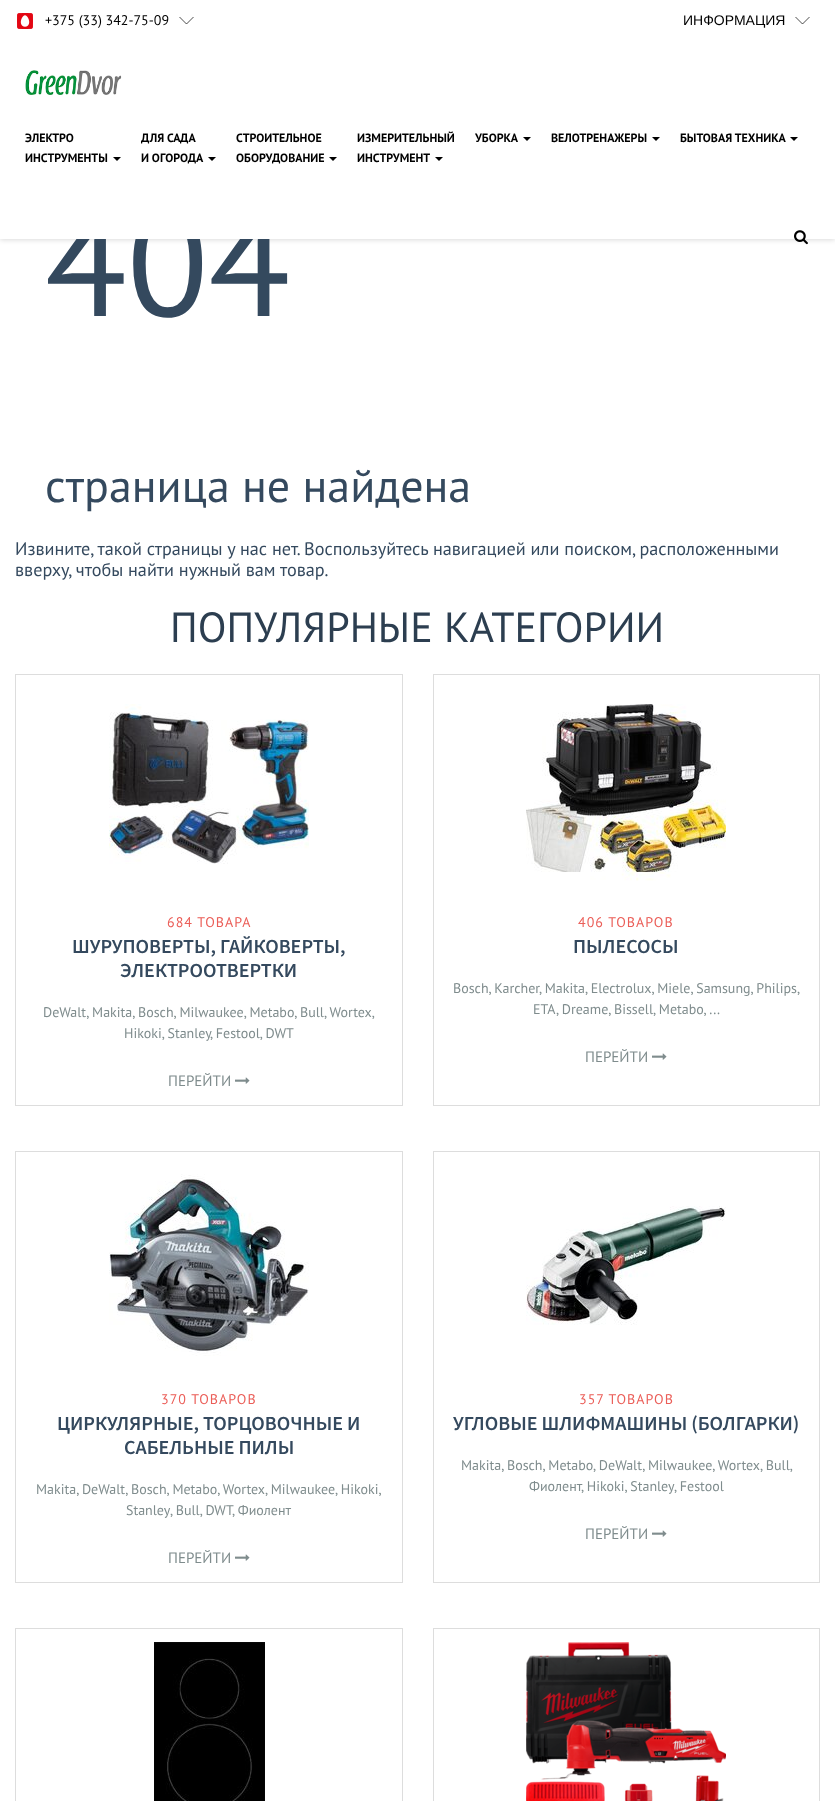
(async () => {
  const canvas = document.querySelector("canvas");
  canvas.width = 835;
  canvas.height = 1801;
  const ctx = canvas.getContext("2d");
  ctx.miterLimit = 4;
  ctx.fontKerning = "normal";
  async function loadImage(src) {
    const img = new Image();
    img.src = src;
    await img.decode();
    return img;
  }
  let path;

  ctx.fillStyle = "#ffffff";
  ctx.fillRect(0, 0, 835, 1801);
  ctx.fillStyle = "rgba(0, 0, 0, 0.14)";
  ctx.filter = "blur(2.5px)";
  ctx.beginPath();
  ctx.rect(0, 1, 835, 239);
  ctx.fill();
  ctx.filter = "none";
  ctx.strokeStyle = "#dddddd";
  ctx.strokeRect(15.5, 674.5, 387, 431);
  ctx.drawImage(await loadImage("img/4.png"), 109, 704, 200, 160);
  ctx.drawImage(await loadImage("img/5.png"), 235, 1077, 15, 7);
  ctx.strokeRect(433.5, 674.5, 386, 431);
  ctx.drawImage(await loadImage("img/6.png"), 526, 704, 200, 177);
  ctx.drawImage(await loadImage("img/5.png"), 652, 1053, 15, 7);
  ctx.strokeRect(15.5, 1151.5, 387, 431);
  ctx.drawImage(await loadImage("img/7.png"), 109, 1174, 200, 182);
  ctx.drawImage(await loadImage("img/5.png"), 235, 1554, 15, 7);
  ctx.strokeRect(433.5, 1151.5, 386, 431);
  ctx.drawImage(await loadImage("img/8.png"), 526, 1206, 200, 119);
  ctx.drawImage(await loadImage("img/5.png"), 652, 1530, 15, 7);
  ctx.strokeRect(15.5, 1628.5, 387, 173);
  ctx.drawImage(await loadImage("img/9.png"), 154, 1642, 111, 159);
  ctx.strokeRect(433.5, 1628.5, 386, 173);
  ctx.drawImage(await loadImage("img/10.png"), 526, 1642, 200, 159);
  ctx.font = "150px PT Sans";
  ctx.fillStyle = "#34495e";
  ctx.fillText("404", 45, 316);
  ctx.fillStyle = "#ffffff";
  ctx.fillRect(0, 0, 835, 239);
  ctx.drawImage(await loadImage("img/3.png"), 794, 230, 14, 15);
  ctx.fillStyle = "#000000";
  path = new Path2D("M790 137H798L794 141Z");
  ctx.fill(path);
  ctx.font = "bold 12px PT Sans";
  ctx.fillText("БЫТОВАЯ ТЕХНИКА", 680, 142);
  path = new Path2D("M652 137H660L656 141Z");
  ctx.fill(path);
  ctx.fillText("ВЕЛОТРЕНАЖЕРЫ", 551, 142);
  path = new Path2D("M523 137H531L527 141Z");
  ctx.fill(path);
  ctx.fillText("УБОРКА", 475, 142);
  path = new Path2D("M435 157H443L439 161Z");
  ctx.fill(path);
  ctx.fillText("ИНСТРУМЕНТ", 357, 162);
  ctx.fillText("ИЗМЕРИТЕЛЬНЫЙ", 357, 142);
  path = new Path2D("M329 157H337L333 161Z");
  ctx.fill(path);
  ctx.fillText("ОБОРУДОВАНИЕ", 236, 162);
  ctx.fillText("СТРОИТЕЛЬНОЕ", 236, 142);
  path = new Path2D("M208 157H216L212 161Z");
  ctx.fill(path);
  ctx.fillText("И ОГОРОДА", 141, 162);
  ctx.fillText("ДЛЯ САДА", 141, 142);
  path = new Path2D("M113 157H121L117 161Z");
  ctx.fill(path);
  ctx.fillText("ИНСТРУМЕНТЫ", 25, 162);
  ctx.fillText("ЭЛЕКТРО", 25, 142);
  ctx.drawImage(await loadImage("img/2.png"), 25, 70, 97, 25);
  path = new Path2D("M795.5 17L802.5 24L809.5 17");
  ctx.strokeStyle = "#000000";
  ctx.lineWidth = 0.7;
  ctx.stroke(path);
  ctx.font = "14px Liberation Sans";
  ctx.fillText("ИНФОРМАЦИЯ", 683, 25);
  ctx.drawImage(await loadImage("img/1.png"), 17, 13, 16, 16);
  ctx.font = "14px PT Sans";
  ctx.fillText("+375 (33) 342-75-09", 45, 25);
  path = new Path2D("M179.5 17L186.5 24L193.5 17");
  ctx.stroke(path);
  ctx.font = "46px PT Sans";
  ctx.fillStyle = "#34495e";
  ctx.fillText("cтраница не найдена", 45, 502);
  ctx.font = "18.2px PT Sans";
  ctx.fillText("Извините, такой страницы у нас нет. Воспользуйтесь навигацией или поиском, расположенными", 15, 555);
  ctx.fillText("вверху, чтобы найти нужный вам товар.", 15, 576);
  ctx.font = "42px PT Sans";
  ctx.fillStyle = "#2c3e50";
  ctx.fillText("ПОПУЛЯРНЫЕ КАТЕГОРИИ", 170, 642);
  ctx.letterSpacing = "1px";
  ctx.font = "14px PT Sans";
  ctx.fillStyle = "#eb5e58";
  ctx.fillText("684 ТОВАРА", 167, 927);
  ctx.letterSpacing = "0px";
  ctx.font = "600 20px Source Sans Pro";
  ctx.fillStyle = "#34495e";
  ctx.fillText("ШУРУПОВЕРТЫ, ГАЙКОВЕРТЫ,", 72, 953);
  ctx.fillText("ЭЛЕКТРООТВЕРТКИ", 120, 977);
  ctx.font = "14px PT Sans";
  ctx.fillStyle = "#7f8c8d";
  for (const [text, x, y] of [
    ["DeWalt, Makita, Bosch, Milwaukee, Metabo, Bull, Wortex,", 43, 1017],
    ["Hikoki, Stanley", 124, 1038],
    [", Festool, DWT", 210, 1038],
  ]) {
    ctx.fillText(text, x, y);
  }
  ctx.font = "15px PT Sans";
  ctx.fillText("ПЕРЕЙТИ", 168, 1086);
  ctx.letterSpacing = "1px";
  ctx.font = "14px PT Sans";
  ctx.fillStyle = "#eb5e58";
  ctx.fillText("406 ТОВАРОВ", 578, 927);
  ctx.letterSpacing = "0px";
  ctx.font = "600 20px Source Sans Pro";
  ctx.fillStyle = "#34495e";
  ctx.fillText("ПЫЛЕСОСЫ", 573, 953);
  ctx.font = "14px PT Sans";
  ctx.fillStyle = "#7f8c8d";
  for (const [text, x, y] of [
    ["Bosch, Karcher", 453, 993],
    [", Makita, Electrolux, Miele, Samsung, Philips,", 539, 993],
    ["ETA", 533, 1014],
    [", Dreame, Bissell, Metabo, ...", 556, 1014],
  ]) {
    ctx.fillText(text, x, y);
  }
  ctx.font = "15px PT Sans";
  ctx.fillText("ПЕРЕЙТИ", 585, 1062);
  ctx.letterSpacing = "1px";
  ctx.font = "14px PT Sans";
  ctx.fillStyle = "#eb5e58";
  ctx.fillText("370 ТОВАРОВ", 161, 1404);
  ctx.letterSpacing = "0px";
  ctx.font = "600 20px Source Sans Pro";
  ctx.fillStyle = "#34495e";
  ctx.fillText("ЦИРКУЛЯРНЫЕ, ТОРЦОВОЧНЫЕ И", 57, 1430);
  ctx.fillText("САБЕЛЬНЫЕ ПИЛЫ", 124, 1454);
  ctx.font = "14px PT Sans";
  ctx.fillStyle = "#7f8c8d";
  for (const [text, x, y] of [
    ["Makita, DeWalt, Bosch, Metabo, Wortex, Milwaukee, Hikoki,", 36, 1494],
    ["Stanley", 126, 1515],
    [", Bull, DWT", 170, 1515],
    [", Фиолент", 232, 1515],
  ]) {
    ctx.fillText(text, x, y);
  }
  ctx.font = "15px PT Sans";
  ctx.fillText("ПЕРЕЙТИ", 168, 1563);
  ctx.letterSpacing = "1px";
  ctx.font = "14px PT Sans";
  ctx.fillStyle = "#eb5e58";
  ctx.fillText("357 ТОВАРОВ", 579, 1404);
  ctx.letterSpacing = "0px";
  ctx.font = "600 20px Source Sans Pro";
  ctx.fillStyle = "#34495e";
  ctx.fillText("УГЛОВЫЕ ШЛИФМАШИНЫ (БОЛГАРКИ)", 453, 1430);
  ctx.font = "14px PT Sans";
  ctx.fillStyle = "#7f8c8d";
  for (const [text, x, y] of [
    ["Makita, Bosch, Metabo, DeWalt, Milwaukee, Wortex, Bull,", 461, 1470],
    ["Фиолент", 529, 1491],
    [", Hikoki, Stanley", 581, 1491],
    [", Festool", 674, 1491],
  ]) {
    ctx.fillText(text, x, y);
  }
  ctx.font = "15px PT Sans";
  ctx.fillText("ПЕРЕЙТИ", 585, 1539);
})();
